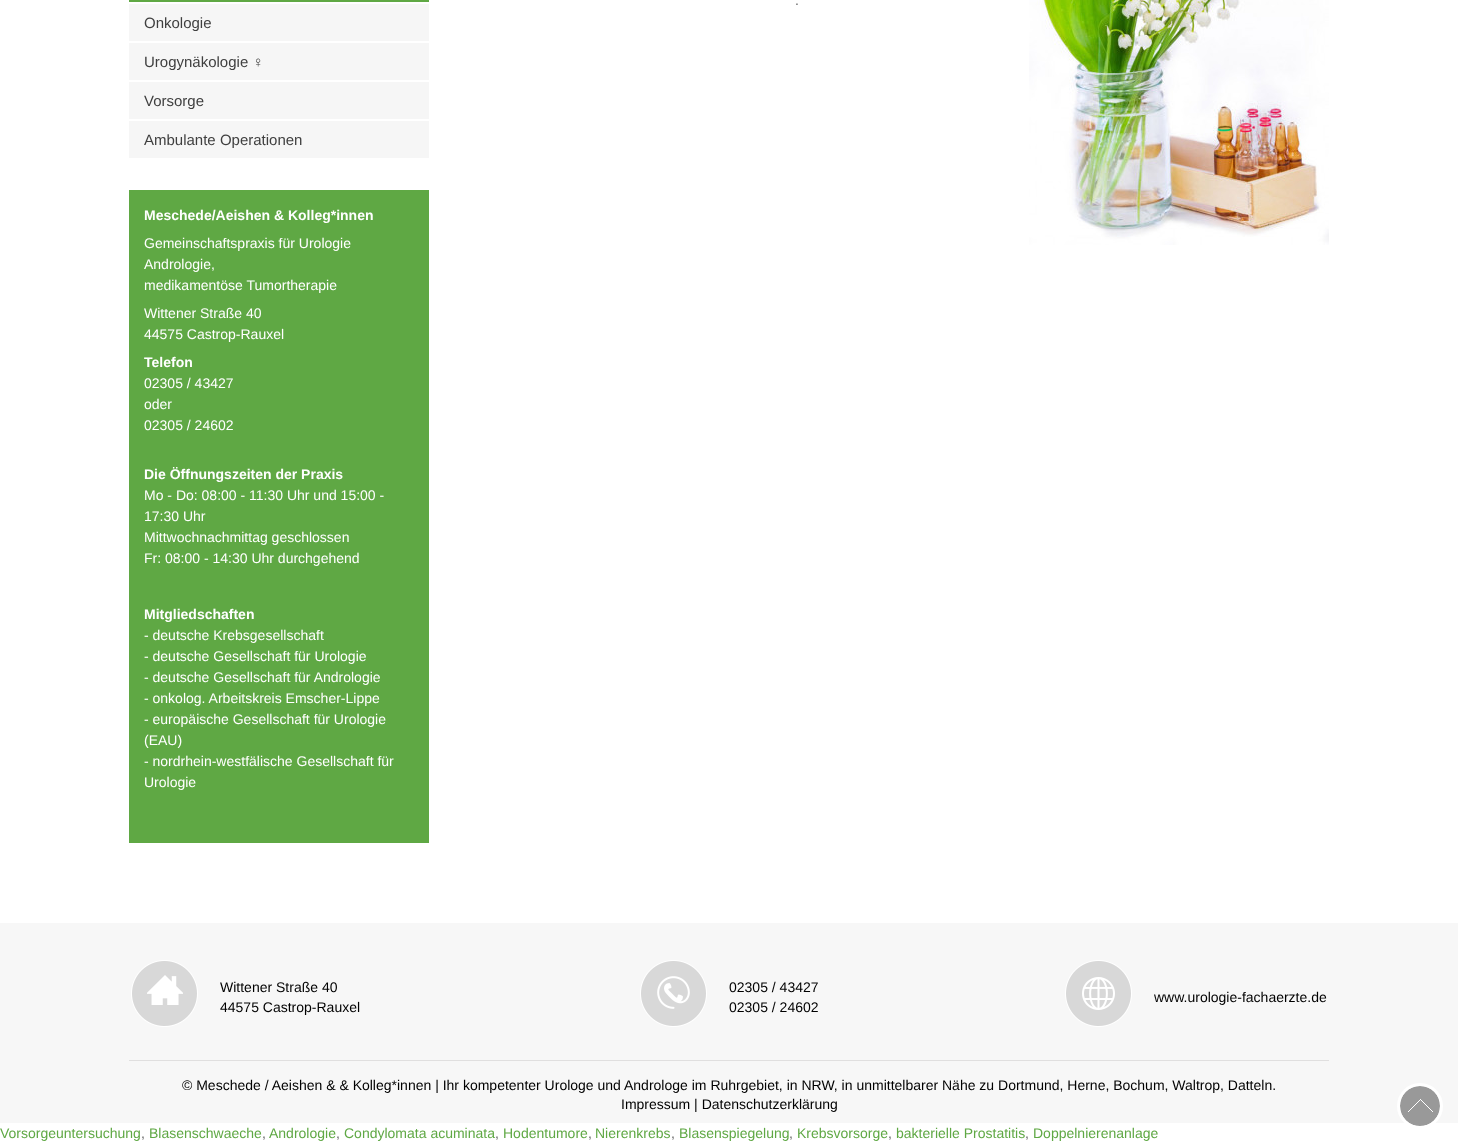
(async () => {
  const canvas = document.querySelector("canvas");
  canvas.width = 1458;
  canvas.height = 1144;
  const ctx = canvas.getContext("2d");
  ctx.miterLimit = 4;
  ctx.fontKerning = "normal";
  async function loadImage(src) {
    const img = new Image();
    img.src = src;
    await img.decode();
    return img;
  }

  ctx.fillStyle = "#ffffff";
  ctx.fillRect(0, 0, 1458, 1144);
  ctx.drawImage(await loadImage("img/1.png"), 1029, 0, 300, 245);
  for (const [x, y, w, h, color] of [
    [129, 0, 300, 2, "#5fa844"],
    [129, 4, 300, 37, "#f6f6f6"],
    [129, 43, 300, 37, "#f6f6f6"],
    [129, 82, 300, 37, "#f6f6f6"],
    [129, 121, 300, 37, "#f6f6f6"],
    [129, 190, 300, 653, "#5fa844"],
    [0, 923, 1458, 200, "#f7f7f7"],
  ]) {
    ctx.fillStyle = color;
    ctx.fillRect(x, y, w, h);
  }
  ctx.fillStyle = "#999999";
  ctx.beginPath();
  ctx.arc(1420, 1106, 20, 0, Math.PI * 2);
  ctx.fill();
  ctx.drawImage(await loadImage("img/2.png"), 1408, 1099, 25, 13);
  ctx.beginPath();
  ctx.arc(1420, 1106, 21.5, 0, Math.PI * 2);
  ctx.strokeStyle = "#ffffff";
  ctx.lineWidth = 3;
  ctx.stroke();
  ctx.fillStyle = "#e0dfdf";
  ctx.fillRect(129, 1060, 1200, 1);
  ctx.drawImage(await loadImage("img/3.png"), 131, 960, 67, 67);
  ctx.drawImage(await loadImage("img/4.png"), 640, 960, 67, 67);
  ctx.drawImage(await loadImage("img/5.png"), 1065, 960, 67, 67);
  ctx.font = "14px Liberation Sans";
  ctx.fillStyle = "#676767";
  ctx.fillText(".", 795, 5);
  ctx.font = "15px Liberation Sans";
  ctx.fillStyle = "#3f3f3f";
  for (const [text, x, y] of [
    ["Onkologie", 144, 28],
    ["Urogynäkologie ♀", 144, 67],
    ["Vorsorge", 144, 106],
    ["Ambulante Operationen", 144, 145],
  ]) {
    ctx.fillText(text, x, y);
  }
  ctx.font = "bold 14px Liberation Sans";
  ctx.fillStyle = "#ffffff";
  ctx.fillText("Meschede/Aeishen & Kolleg*innen", 144, 220);
  ctx.font = "14px Liberation Sans";
  for (const [text, x, y] of [
    ["Gemeinschaftspraxis für Urologie", 144, 248],
    ["Andrologie,", 144, 269],
    ["medikamentöse Tumortherapie", 144, 290],
    ["Wittener Straße 40", 144, 318],
    ["44575 Castrop-Rauxel", 144, 339],
  ]) {
    ctx.fillText(text, x, y);
  }
  ctx.font = "bold 14px Liberation Sans";
  ctx.fillText("Telefon", 144, 367);
  ctx.font = "14px Liberation Sans";
  for (const [text, x, y] of [
    ["02305 / 43427", 144, 388],
    ["oder", 144, 409],
    ["02305 / 24602", 144, 430],
  ]) {
    ctx.fillText(text, x, y);
  }
  ctx.font = "bold 14px Liberation Sans";
  ctx.fillText("Die Öffnungszeiten der Praxis", 144, 479);
  ctx.font = "14px Liberation Sans";
  for (const [text, x, y] of [
    ["Mo - Do: 08:00 - 11:30 Uhr und 15:00 -", 144, 500],
    ["17:30 Uhr", 144, 521],
    ["Mittwochnachmittag geschlossen", 144, 542],
    ["Fr: 08:00 - 14:30 Uhr durchgehend", 144, 563],
  ]) {
    ctx.fillText(text, x, y);
  }
  ctx.font = "bold 14px Liberation Sans";
  ctx.fillText("Mitgliedschaften", 144, 619);
  ctx.font = "14px Liberation Sans";
  for (const [text, x, y] of [
    ["- deutsche Krebsgesellschaft", 144, 640],
    ["- deutsche Gesellschaft für Urologie", 144, 661],
    ["- deutsche Gesellschaft für Andrologie", 144, 682],
    ["- onkolog. Arbeitskreis Emscher-Lippe", 144, 703],
    ["- europäische Gesellschaft für Urologie", 144, 724],
    ["(EAU)", 144, 745],
    ["- nordrhein-westfälische Gesellschaft für", 144, 766],
    ["Urologie", 144, 787],
  ]) {
    ctx.fillText(text, x, y);
  }
  ctx.fillStyle = "#000000";
  for (const [text, x, y] of [
    ["Wittener Straße 40", 220, 992],
    ["44575 Castrop-Rauxel", 220, 1012],
    ["02305 / 43427", 729, 992],
    ["02305 / 24602", 729, 1012],
    ["www.urologie-fachaerzte.de", 1154, 1002],
    ["© Meschede / Aeishen & & Kolleg*innen | Ihr kompetenter Urologe und Androloge im Ruhrgebiet, in NRW, in unmittelbarer Nähe zu Dortmund, Herne, Bochum, Waltrop, Datteln.", 182, 1090],
    ["Impressum | Datenschutzerklärung", 621, 1109],
  ]) {
    ctx.fillText(text, x, y);
  }
  ctx.fillStyle = "#5fa844";
  ctx.fillText("Vorsorgeuntersuchung", 0, 1138);
  ctx.fillStyle = "#676767";
  ctx.fillText(",", 141, 1138);
  ctx.fillStyle = "#5fa844";
  ctx.fillText("Blasenschwaeche", 149, 1138);
  ctx.fillStyle = "#676767";
  ctx.fillText(",", 262, 1138);
  ctx.fillStyle = "#5fa844";
  ctx.fillText("Andrologie", 269, 1138);
  ctx.fillStyle = "#676767";
  ctx.fillText(",", 336, 1138);
  ctx.fillStyle = "#5fa844";
  ctx.fillText("Condylomata acuminata", 344, 1138);
  ctx.fillStyle = "#676767";
  ctx.fillText(",", 495, 1138);
  ctx.fillStyle = "#5fa844";
  ctx.fillText("Hodentumore", 503, 1138);
  ctx.fillStyle = "#676767";
  ctx.fillText(",", 588, 1138);
  ctx.fillStyle = "#5fa844";
  ctx.fillText("Nierenkrebs", 595, 1138);
  ctx.fillStyle = "#676767";
  ctx.fillText(",", 671, 1138);
  ctx.fillStyle = "#5fa844";
  ctx.fillText("Blasenspiegelung", 679, 1138);
  ctx.fillStyle = "#676767";
  ctx.fillText(",", 789, 1138);
  ctx.fillStyle = "#5fa844";
  ctx.fillText("Krebsvorsorge", 797, 1138);
  ctx.fillStyle = "#676767";
  ctx.fillText(",", 888, 1138);
  ctx.fillStyle = "#5fa844";
  ctx.fillText("bakterielle Prostatitis", 896, 1138);
  ctx.fillStyle = "#676767";
  ctx.fillText(",", 1025, 1138);
  ctx.fillStyle = "#5fa844";
  ctx.fillText("Doppelnierenanlage", 1033, 1138);
})();
